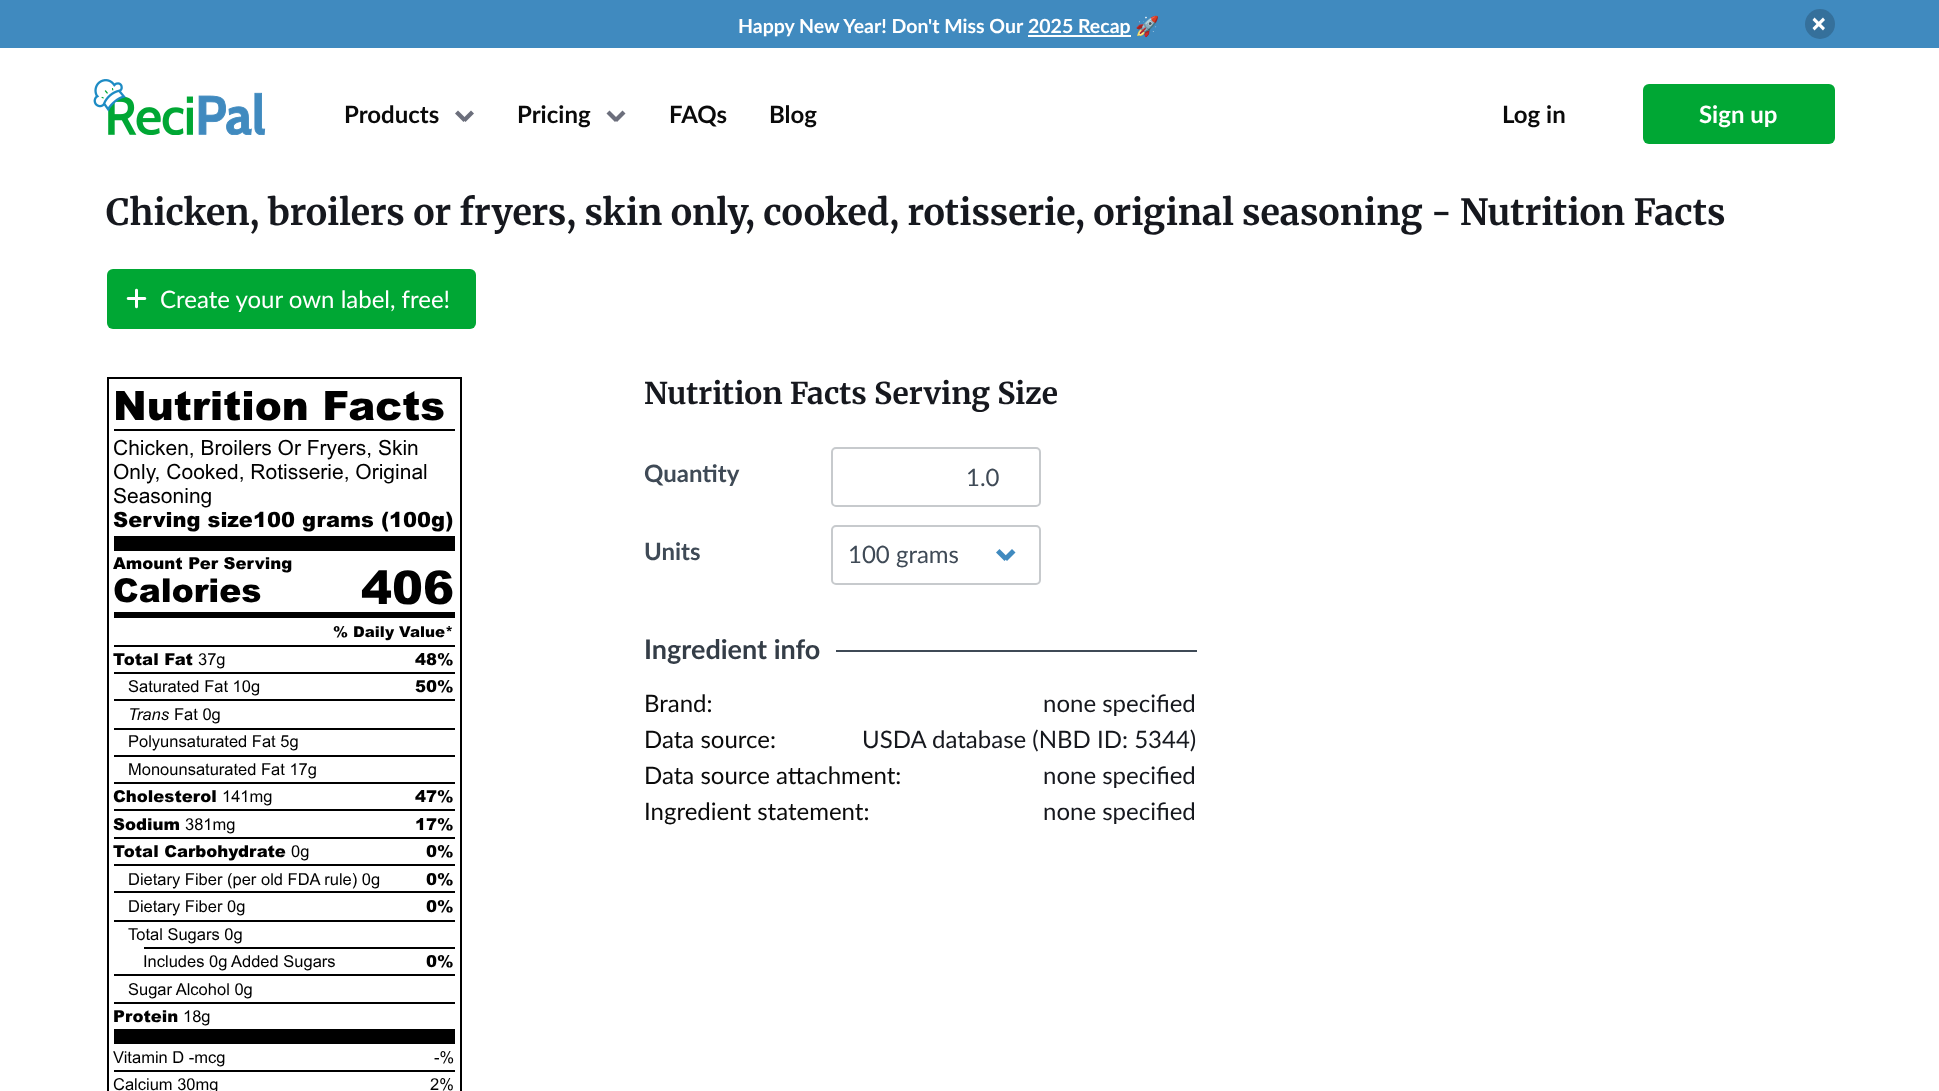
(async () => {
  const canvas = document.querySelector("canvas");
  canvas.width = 1939;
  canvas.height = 1091;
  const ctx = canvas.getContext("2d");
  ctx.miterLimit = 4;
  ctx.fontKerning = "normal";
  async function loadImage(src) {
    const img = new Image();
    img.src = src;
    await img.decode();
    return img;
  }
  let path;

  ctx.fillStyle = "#ffffff";
  ctx.fillRect(0, 0, 1939, 1091);
  ctx.fillStyle = "#408abf";
  ctx.fillRect(0, 0, 1939, 48);
  ctx.fillStyle = "#ffffff";
  ctx.fillRect(1028, 35, 103, 2);
  ctx.fillStyle = "#35709b";
  ctx.beginPath();
  ctx.arc(1820, 24, 15, 0, Math.PI * 2);
  ctx.fill();
  ctx.fillStyle = "#ffffff";
  path = new Path2D("M1814.5 17.5L1825 28L1823 30.5L1812.5 20Z");
  ctx.fill(path);
  path = new Path2D("M1823 17.5L1825 20L1814.5 30.5L1812.5 28Z");
  ctx.fill(path);
  ctx.drawImage(await loadImage("img/1.png"), 93, 79, 173, 56);
  ctx.fillStyle = "#6c6f7c";
  path = new Path2D("M462.5 119L471 110.5L474 113.5L465.5 122Z");
  ctx.fill(path);
  path = new Path2D("M455 113.5L458 110.5L466.5 119L463.5 122Z");
  ctx.fill(path);
  path = new Path2D("M614 119L622.5 110.5L625.5 113.5L617 122Z");
  ctx.fill(path);
  path = new Path2D("M606.5 113.5L609.5 110.5L618 119L615 122Z");
  ctx.fill(path);
  ctx.fillStyle = "#00a734";
  ctx.beginPath();
  ctx.roundRect(1643, 84, 192, 60, 6);
  ctx.fill();
  ctx.beginPath();
  ctx.roundRect(107, 269, 369, 60, 6);
  ctx.fill();
  ctx.drawImage(await loadImage("img/2.png"), 126, 288, 21, 21);
  ctx.strokeStyle = "#000000";
  ctx.lineWidth = 2;
  ctx.strokeRect(108, 378, 353, 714);
  for (const [x, y, w, h, color] of [
    [114, 429, 341, 2, "#000000"],
    [114, 536, 341, 15, "#000000"],
    [114, 612, 341, 6, "#000000"],
    [114, 645, 341, 2, "#000000"],
    [114, 672, 341, 2, "#000000"],
    [114, 699, 341, 2, "#000000"],
    [114, 728, 341, 2, "#000000"],
    [114, 755, 341, 2, "#000000"],
    [114, 782, 341, 2, "#000000"],
    [114, 809, 341, 2, "#000000"],
    [114, 837, 341, 2, "#000000"],
    [114, 864, 341, 2, "#000000"],
    [114, 891, 341, 2, "#000000"],
    [114, 920, 341, 2, "#000000"],
    [144, 947, 311, 2, "#000000"],
    [114, 974, 341, 2, "#000000"],
    [114, 1002, 341, 2, "#000000"],
    [114, 1029, 341, 15, "#000000"],
    [114, 1070, 341, 2, "#000000"],
  ]) {
    ctx.fillStyle = color;
    ctx.fillRect(x, y, w, h);
  }
  ctx.beginPath();
  ctx.roundRect(832, 448, 208, 58, 4);
  ctx.strokeStyle = "#c7cacd";
  ctx.stroke();
  ctx.beginPath();
  ctx.roundRect(832, 526, 208, 58, 4);
  ctx.stroke();
  ctx.fillStyle = "#408abf";
  path = new Path2D("M1003.5 557.5L1012 549L1015.5 552.5L1007 561Z");
  ctx.fill(path);
  path = new Path2D("M996 552.5L999.5 549L1008 557.5L1004.5 561Z");
  ctx.fill(path);
  ctx.fillStyle = "#3f4a56";
  ctx.fillRect(836, 650, 361, 2);
  ctx.font = "bold 19.5px Lato";
  ctx.fillStyle = "#ffffff";
  ctx.fillText("Happy New Year! Don't Miss Our", 738, 33);
  ctx.fillText("2025 Recap", 1028, 33);
  ctx.font = "bold 19.5px Noto Color Emoji";
  ctx.fillText("🚀", 1135, 33);
  ctx.font = "bold 24px Lato";
  ctx.fillStyle = "#0a0a0a";
  for (const [text, x, y] of [
    ["Products", 344, 123],
    ["Pricing", 517, 123],
    ["FAQs", 669, 123],
    ["Blog", 769, 123],
    ["Log in", 1502, 123],
  ]) {
    ctx.fillText(text, x, y);
  }
  ctx.fillStyle = "#ffffff";
  ctx.fillText("Sign up", 1699, 123);
  ctx.font = "bold 36px Merriweather";
  ctx.fillStyle = "#16181e";
  ctx.fillText("Chicken, broilers or fryers, skin only, cooked, rotisserie, original seasoning - Nutrition Facts", 106, 225);
  ctx.font = "24px Lato";
  ctx.fillStyle = "#ffffff";
  ctx.fillText("Create your own label, free!", 160, 308);
  ctx.font = "900 40.5px Arial";
  ctx.fillStyle = "#000000";
  ctx.fillText("Nutrition Facts", 113, 420);
  ctx.font = "21px Arial";
  for (const [text, x, y] of [
    ["Chicken, Broilers Or Fryers, Skin", 113, 455],
    ["Only, Cooked, Rotisserie, Original", 113, 479],
    ["Seasoning", 113, 503],
  ]) {
    ctx.fillText(text, x, y);
  }
  ctx.font = "900 21px Arial";
  ctx.fillText("Serving size", 113, 527);
  ctx.fillText("100 grams (100g)", 253, 527);
  ctx.font = "900 16.5px Arial";
  ctx.fillText("Amount Per Serving", 113, 569);
  ctx.font = "900 33px Arial";
  ctx.fillText("Calories", 113, 602);
  ctx.font = "900 46.5px Arial";
  ctx.fillText("406", 361, 604);
  ctx.font = "900 15px Arial";
  ctx.fillText("% Daily Value*", 333, 637);
  ctx.font = "900 16.5px Arial";
  ctx.fillText("Total Fat", 113, 665);
  ctx.font = "16.5px Arial";
  ctx.fillText("37g", 198, 665);
  ctx.font = "900 16.5px Arial";
  ctx.fillText("48%", 415, 665);
  ctx.font = "16.5px Arial";
  ctx.fillText("Saturated Fat 10g", 128, 692);
  ctx.font = "900 16.5px Arial";
  ctx.fillText("50%", 415, 692);
  ctx.font = "italic 16.5px Arial";
  ctx.fillText("Trans", 128, 720);
  ctx.font = "16.5px Arial";
  for (const [text, x, y] of [
    ["Fat 0g", 174, 720],
    ["Polyunsaturated Fat 5g", 128, 747],
    ["Monounsaturated Fat 17g", 128, 775],
  ]) {
    ctx.fillText(text, x, y);
  }
  ctx.font = "900 16.5px Arial";
  ctx.fillText("Cholesterol", 113, 802);
  ctx.font = "16.5px Arial";
  ctx.fillText("141mg", 222, 802);
  ctx.font = "900 16.5px Arial";
  ctx.fillText("47%", 415, 802);
  ctx.fillText("Sodium", 113, 830);
  ctx.font = "16.5px Arial";
  ctx.fillText("381mg", 185, 830);
  ctx.font = "900 16.5px Arial";
  ctx.fillText("17%", 415, 830);
  ctx.fillText("Total Carbohydrate", 113, 857);
  ctx.font = "16.5px Arial";
  ctx.fillText("0g", 291, 857);
  ctx.font = "900 16.5px Arial";
  ctx.fillText("0%", 426, 857);
  ctx.font = "16.5px Arial";
  ctx.fillText("Dietary Fiber (per old FDA rule) 0g", 128, 885);
  ctx.font = "900 16.5px Arial";
  ctx.fillText("0%", 426, 885);
  ctx.font = "16.5px Arial";
  ctx.fillText("Dietary Fiber 0g", 128, 912);
  ctx.font = "900 16.5px Arial";
  ctx.fillText("0%", 426, 912);
  ctx.font = "16.5px Arial";
  for (const [text, x, y] of [
    ["Total Sugars 0g", 128, 940],
    ["Includes 0g", 143, 967],
    ["Added Sugars", 231, 967],
  ]) {
    ctx.fillText(text, x, y);
  }
  ctx.font = "900 16.5px Arial";
  ctx.fillText("0%", 426, 967);
  ctx.font = "16.5px Arial";
  ctx.fillText("Sugar Alcohol 0g", 128, 995);
  ctx.font = "900 16.5px Arial";
  ctx.fillText("Protein", 113, 1022);
  ctx.font = "16.5px Arial";
  for (const [text, x, y] of [
    ["18g", 183, 1022],
    ["Vitamin D -mcg", 113, 1063],
    ["-%", 434, 1063],
    ["Calcium 30mg", 113, 1090],
    ["2%", 430, 1090],
  ]) {
    ctx.fillText(text, x, y);
  }
  ctx.font = "bold 30px 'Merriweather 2'";
  ctx.fillStyle = "#16181e";
  ctx.fillText("Nutrition Facts Serving Size", 644, 404);
  ctx.font = "bold 24px Lato";
  ctx.fillStyle = "#3f4a56";
  ctx.fillText("Quantity", 644, 482);
  ctx.font = "24px Lato";
  ctx.fillText("1.0", 966, 486);
  ctx.font = "bold 24px Lato";
  ctx.fillText("Units", 644, 560);
  ctx.font = "24px Lato";
  ctx.fillText("100 grams", 848, 563);
  ctx.font = "bold 27px Lato";
  ctx.fillStyle = "#343d47";
  ctx.fillText("Ingredient info", 644, 659);
  ctx.font = "24px Lato";
  ctx.fillStyle = "#0a0a0a";
  ctx.fillText("Brand:", 644, 712);
  ctx.fillStyle = "#16181e";
  ctx.fillText("none specified", 1043, 712);
  ctx.fillStyle = "#0a0a0a";
  ctx.fillText("Data source:", 644, 748);
  ctx.fillStyle = "#16181e";
  ctx.fillText("USDA database (NBD ID: 5344)", 862, 748);
  ctx.fillStyle = "#0a0a0a";
  ctx.fillText("Data source attachment:", 644, 784);
  ctx.fillStyle = "#16181e";
  ctx.fillText("none specified", 1043, 784);
  ctx.fillStyle = "#0a0a0a";
  ctx.fillText("Ingredient statement:", 644, 820);
  ctx.fillStyle = "#16181e";
  ctx.fillText("none specified", 1043, 820);
})();
